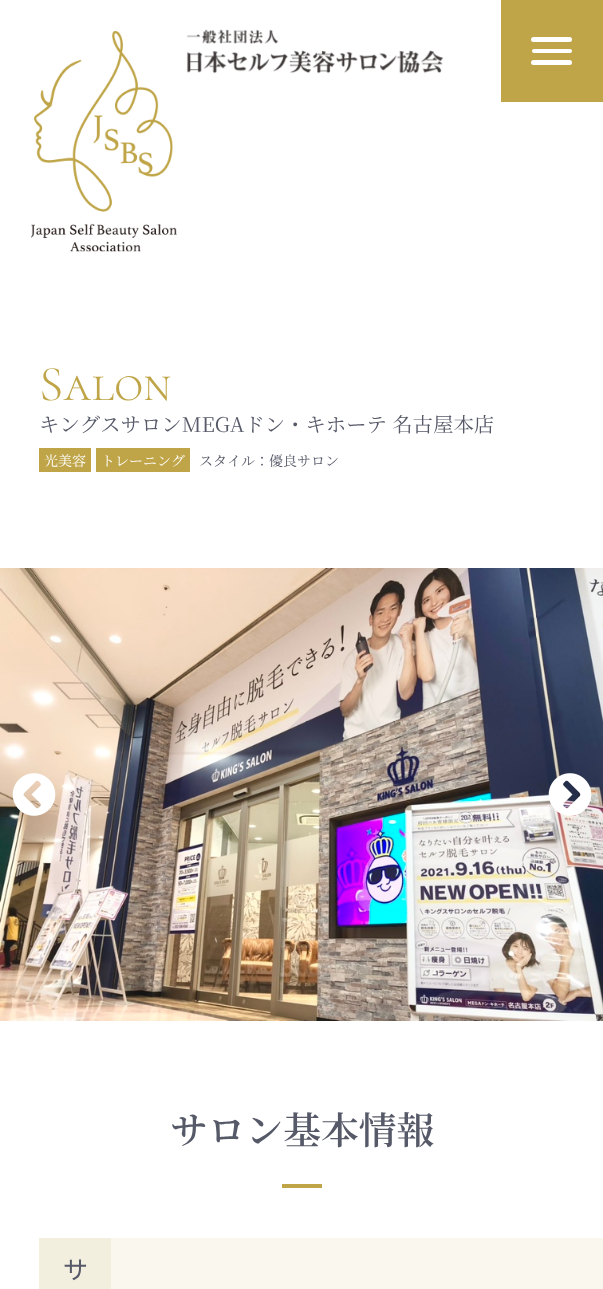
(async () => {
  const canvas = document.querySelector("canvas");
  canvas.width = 603;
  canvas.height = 1289;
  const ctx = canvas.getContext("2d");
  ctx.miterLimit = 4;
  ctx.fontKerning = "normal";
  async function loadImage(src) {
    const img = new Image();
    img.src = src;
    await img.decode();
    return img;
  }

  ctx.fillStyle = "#ffffff";
  ctx.fillRect(0, 0, 603, 1289);
  ctx.drawImage(await loadImage("img/1.png"), 186, 29, 257, 45);
  ctx.fillStyle = "#bfa548";
  ctx.fillRect(501, 0, 102, 102);
  ctx.fillStyle = "#ffffff";
  ctx.beginPath();
  ctx.roundRect(532, 49, 40, 4, 2);
  ctx.fill();
  ctx.beginPath();
  ctx.roundRect(531, 37, 41, 5, 2.5);
  ctx.fill();
  ctx.beginPath();
  ctx.roundRect(531, 60, 41, 5, 2.5);
  ctx.fill();
  ctx.drawImage(await loadImage("img/2.png"), 31, 31, 146, 221);
  ctx.fillStyle = "#bfa548";
  ctx.fillRect(39, 448, 52, 24);
  ctx.fillRect(96, 448, 94, 24);
  ctx.drawImage(await loadImage("img/3.png"), 0, 568, 603, 453);
  ctx.drawImage(await loadImage("img/4.png"), 12, 773, 44, 43);
  ctx.drawImage(await loadImage("img/5.png"), 548, 773, 44, 43);
  for (const [x, y, w, h, color] of [
    [282, 1184, 40, 4, "#bfa548"],
    [39, 1238, 72, 51, "#f3efdf"],
    [111, 1238, 492, 51, "#f9f7ee"],
  ]) {
    ctx.fillStyle = color;
    ctx.fillRect(x, y, w, h);
  }
  ctx.font = "300 50px Cormorant SC";
  ctx.fillStyle = "#bfa548";
  ctx.fillText("Salon", 39, 400);
  ctx.font = "20.4px Noto Serif JP";
  ctx.fillStyle = "#565968";
  ctx.fillText("キングスサロンMEGAドン・キホーテ 名古屋本店", 39, 432);
  ctx.font = "14px Noto Serif JP";
  ctx.fillStyle = "#ffffff";
  ctx.fillText("光美容", 44, 466);
  ctx.fillText("トレーニング", 101, 466);
  ctx.fillStyle = "#565968";
  ctx.fillText("スタイル：優良サロン", 199, 466);
  ctx.font = "600 37.75px Noto Serif JP";
  ctx.fillText("サロン基本情報", 170, 1144);
  ctx.font = "25px Noto Sans JP";
  ctx.fillText("サ", 63, 1279);
})();
